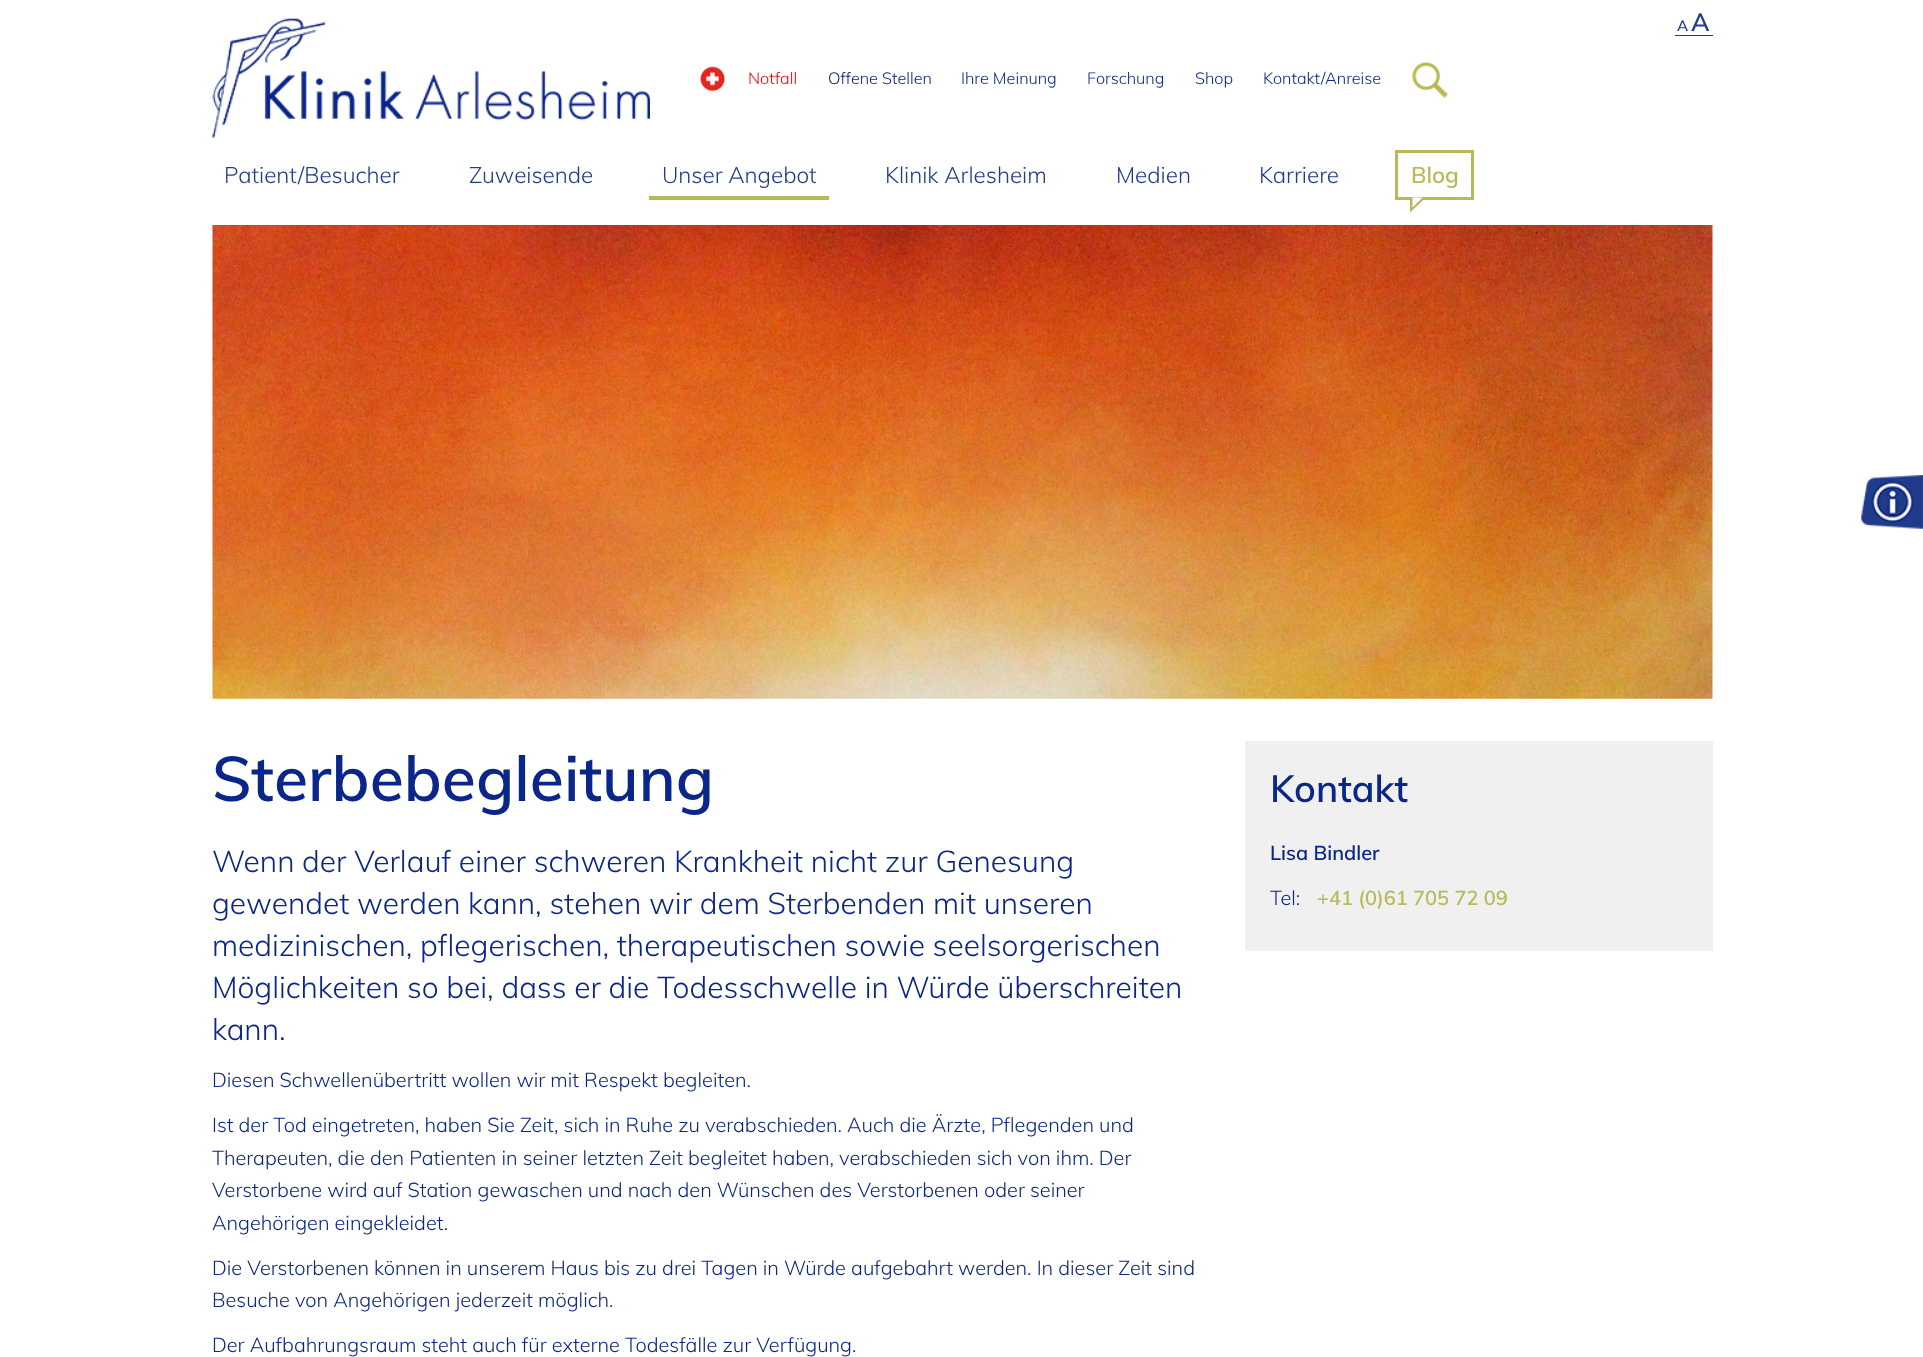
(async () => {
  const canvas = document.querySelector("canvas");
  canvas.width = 1923;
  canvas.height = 1357;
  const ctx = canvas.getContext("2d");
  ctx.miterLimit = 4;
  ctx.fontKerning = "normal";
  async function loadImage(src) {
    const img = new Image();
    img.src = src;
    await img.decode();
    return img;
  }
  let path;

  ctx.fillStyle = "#ffffff";
  ctx.fillRect(0, 0, 1923, 1357);
  ctx.fillStyle = "#213b8b";
  ctx.fillRect(1675, 35, 38, 1);
  ctx.drawImage(await loadImage("img/1.png"), 212, 18, 438, 120);
  ctx.drawImage(await loadImage("img/2.png"), 700, 66, 25, 26);
  ctx.drawImage(await loadImage("img/3.png"), 1412, 62, 36, 36);
  ctx.fillStyle = "#b5ba54";
  ctx.fillRect(649, 196, 180, 4);
  ctx.strokeStyle = "#b7ba56";
  ctx.lineWidth = 3;
  ctx.strokeRect(1396.5, 151.5, 76, 47);
  ctx.fillStyle = "#b7ba56";
  path = new Path2D("M1410 197.5H1426L1410 212.5Z");
  ctx.fill(path);
  ctx.fillStyle = "#ffffff";
  path = new Path2D("M1412.5 197.5H1422.5L1417.5 202.5Z");
  ctx.fill(path);
  path = new Path2D("M1412.5 207.5V197.5L1417.5 202.5Z");
  ctx.fill(path);
  ctx.drawImage(await loadImage("img/4.png"), 212, 225, 1501, 474);
  ctx.drawImage(await loadImage("img/5.png"), 1861, 475, 62, 54);
  ctx.fillStyle = "#f0f0f0";
  ctx.fillRect(1245, 741, 468, 210);
  ctx.font = "600 15px Muli";
  ctx.fillStyle = "#213b8b";
  ctx.fillText("A", 1677, 31);
  ctx.font = "600 25px Muli";
  ctx.fillText("A", 1691, 31);
  ctx.font = "300 16.25px Muli";
  ctx.fillStyle = "#ff0000";
  ctx.fillText("Notfall", 748, 84);
  ctx.fillStyle = "#0a268a";
  for (const [text, x, y] of [
    ["Offene Stellen", 828, 84],
    ["Ihre Meinung", 961, 84],
    ["Forschung", 1087, 84],
    ["Shop", 1195, 84],
    ["Kontakt/Anreise", 1263, 84],
  ]) {
    ctx.fillText(text, x, y);
  }
  ctx.font = "300 22.5px Muli";
  ctx.fillStyle = "#213b8b";
  for (const [text, x, y] of [
    ["Patient/Besucher", 224, 183],
    ["Zuweisende", 469, 183],
    ["Unser Angebot", 662, 183],
    ["Klinik Arlesheim", 885, 183],
    ["Medien", 1116, 183],
    ["Karriere", 1259, 183],
  ]) {
    ctx.fillText(text, x, y);
  }
  ctx.font = "600 22.5px Muli";
  ctx.fillStyle = "#b7ba56";
  ctx.fillText("Blog", 1411, 183);
  ctx.font = "600 62.5px Muli";
  ctx.fillStyle = "#0a268a";
  ctx.fillText("Sterbebegleitung", 212, 801);
  ctx.font = "300 30px Muli";
  for (const [text, x, y] of [
    ["Wenn der Verlauf einer schweren Krankheit nicht zur Genesung", 212, 872],
    ["gewendet werden kann, stehen wir dem Sterbenden mit unseren", 212, 914],
    ["medizinischen, pflegerischen, therapeutischen sowie seelsorgerischen", 212, 956],
    ["Möglichkeiten so bei, dass er die Todesschwelle in Würde überschreiten", 212, 998],
    ["kann.", 212, 1040],
  ]) {
    ctx.fillText(text, x, y);
  }
  ctx.font = "300 20px Muli";
  for (const [text, x, y] of [
    ["Diesen Schwellenübertritt wollen wir mit Respekt begleiten.", 212, 1087],
    ["Ist der Tod eingetreten, haben Sie Zeit, sich in Ruhe zu verabschieden. Auch die Ärzte, Pflegenden und", 212, 1132],
    ["Therapeuten, die den Patienten in seiner letzten Zeit begleitet haben, verabschieden sich von ihm. Der", 212, 1165],
    ["Verstorbene wird auf Station gewaschen und nach den Wünschen des Verstorbenen oder seiner", 212, 1197],
    ["Angehörigen eingekleidet.", 212, 1230],
    ["Die Verstorbenen können in unserem Haus bis zu drei Tagen in Würde aufgebahrt werden. In dieser Zeit sind", 212, 1275],
    ["Besuche von Angehörigen jederzeit möglich.", 212, 1307],
    ["Der Aufbahrungsraum steht auch für externe Todesfälle zur Verfügung.", 212, 1352],
  ]) {
    ctx.fillText(text, x, y);
  }
  ctx.font = "600 37.5px Muli";
  ctx.fillText("Kontakt", 1270, 802);
  ctx.font = "600 20px Muli";
  ctx.fillText("Lisa Bindler", 1270, 860);
  ctx.font = "300 20px Muli";
  ctx.fillText("Tel:", 1270, 905);
  ctx.font = "600 20px Muli";
  ctx.fillStyle = "#b7ba56";
  ctx.fillText("+41 (0)61 705 72 09", 1317, 905);
})();
